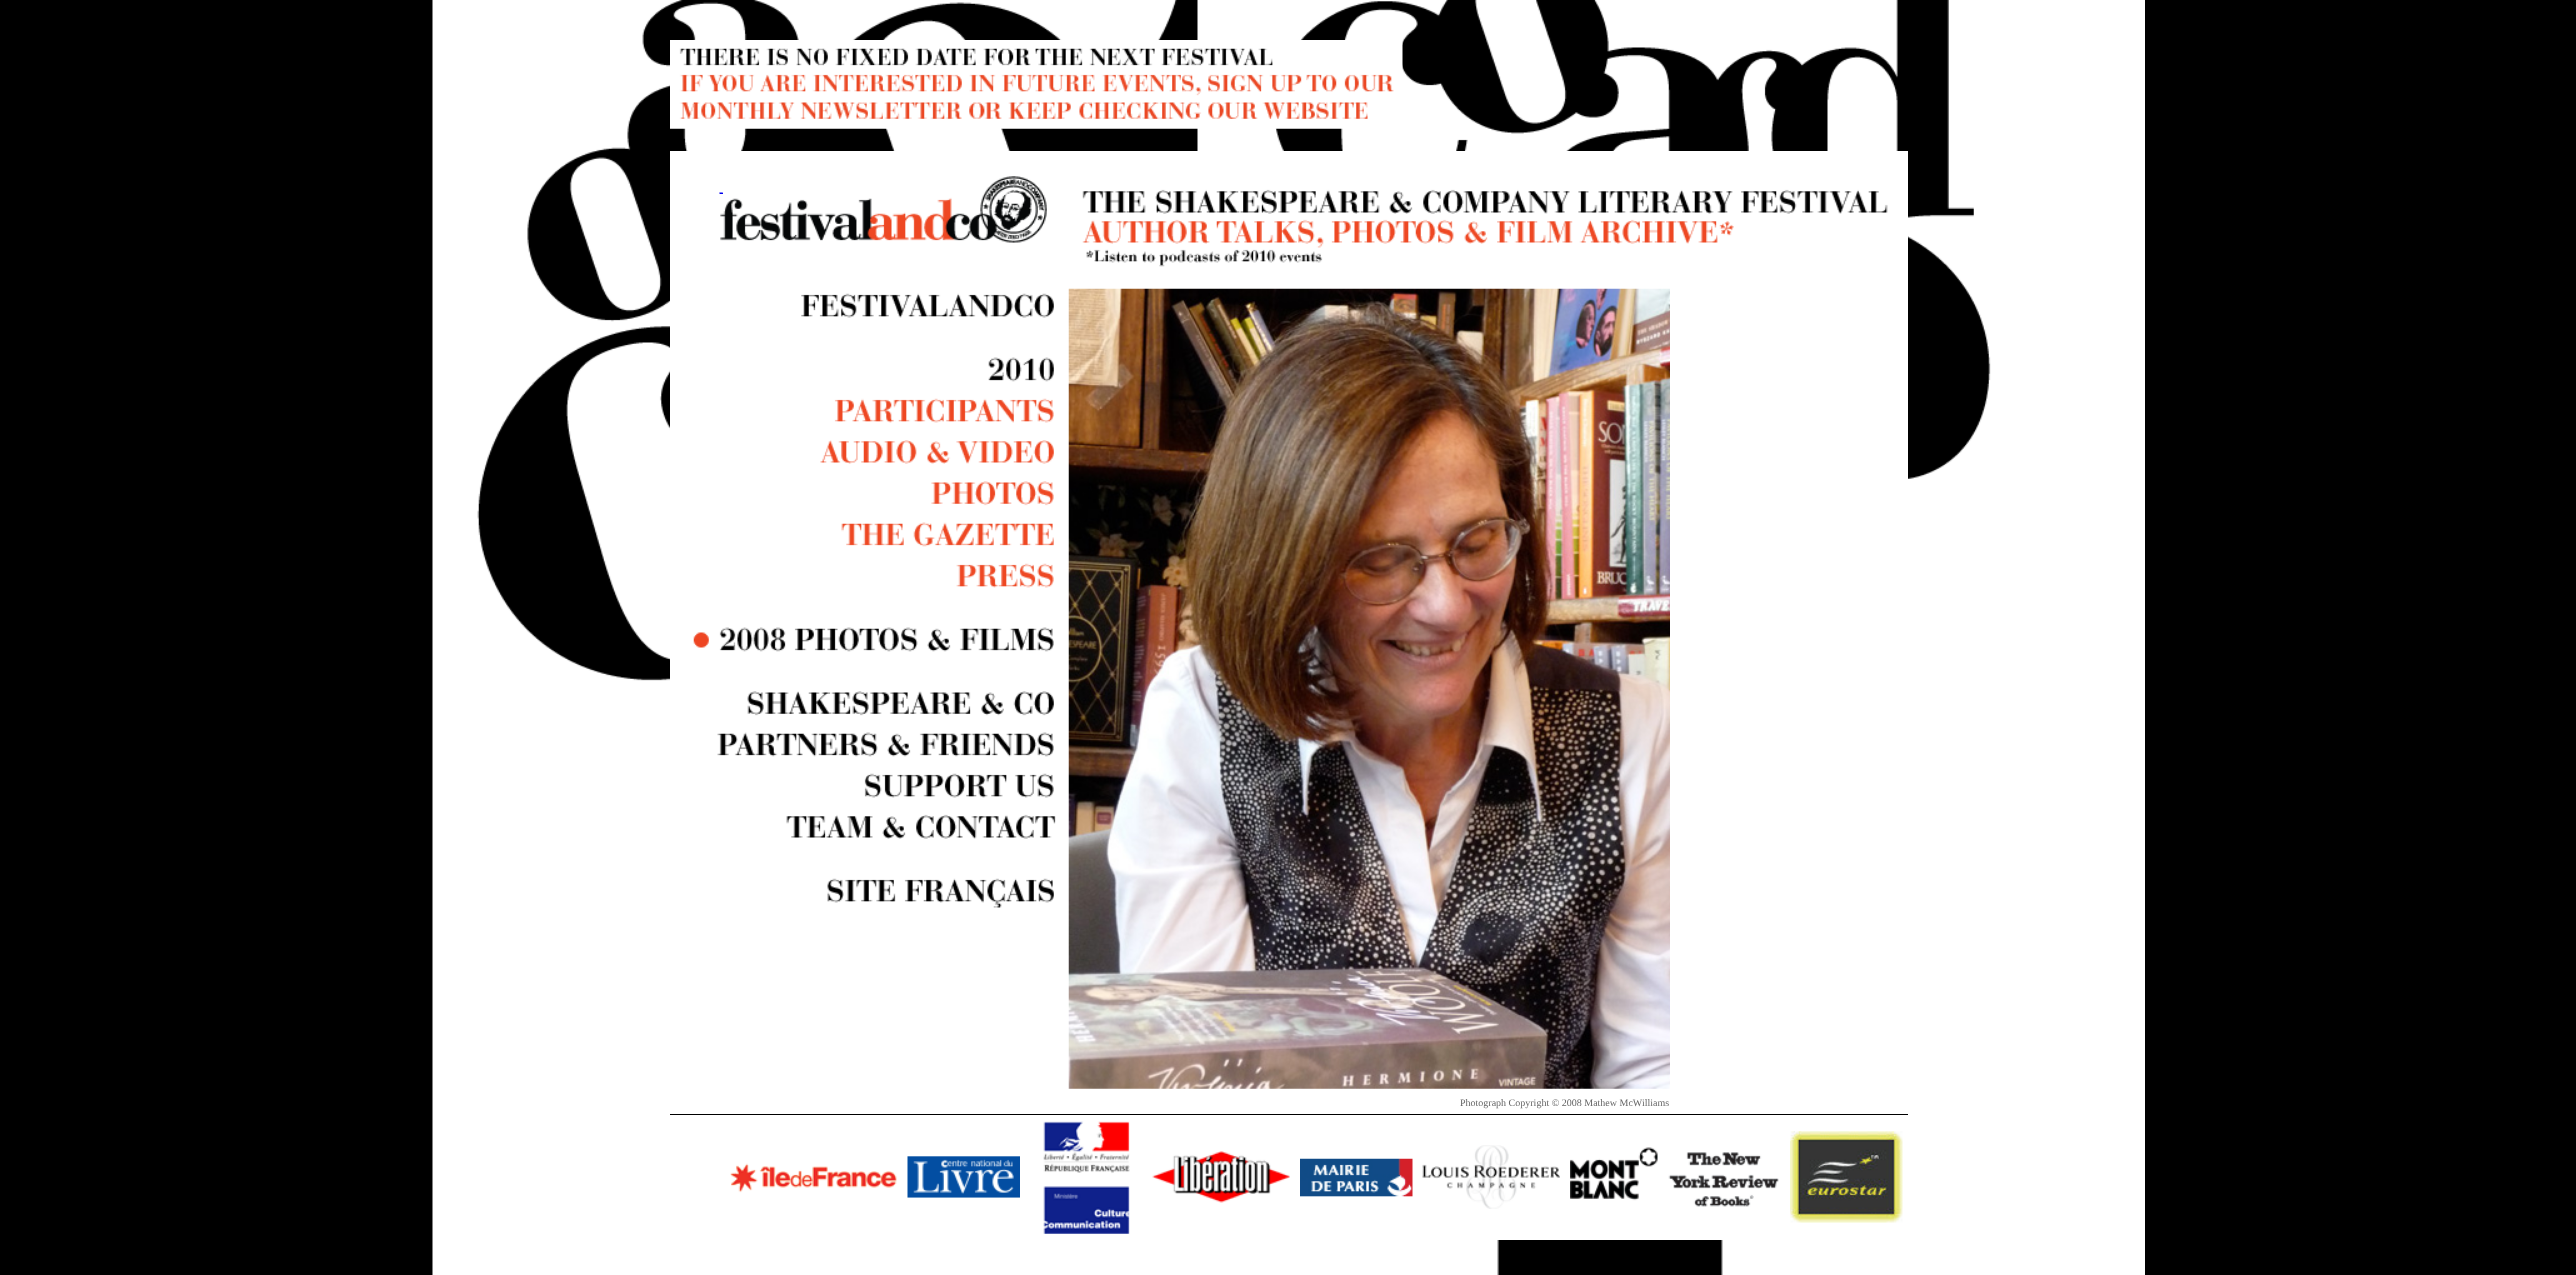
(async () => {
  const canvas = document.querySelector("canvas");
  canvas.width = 2576;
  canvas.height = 1275;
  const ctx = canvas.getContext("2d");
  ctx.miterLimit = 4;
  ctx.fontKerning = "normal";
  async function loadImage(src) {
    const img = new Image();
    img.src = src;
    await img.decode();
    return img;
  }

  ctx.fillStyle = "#000000";
  ctx.fillRect(0, 0, 2576, 1275);
  ctx.drawImage(await loadImage("img/1.png"), 432, 0, 1713, 1275);
  ctx.drawImage(await loadImage("img/2.png"), 670, 40, 733, 89);
  ctx.fillStyle = "#ffffff";
  ctx.fillRect(670, 151, 1238, 963);
  ctx.drawImage(await loadImage("img/3.png"), 719, 176, 1169, 91);
  ctx.fillStyle = "#0000ee";
  ctx.fillRect(720, 193, 3, 1);
  ctx.drawImage(await loadImage("img/4.png"), 801, 293, 253, 25);
  ctx.drawImage(await loadImage("img/5.png"), 988, 357, 66, 25);
  ctx.drawImage(await loadImage("img/6.png"), 834, 398, 220, 25);
  ctx.drawImage(await loadImage("img/7.png"), 820, 440, 234, 24);
  ctx.drawImage(await loadImage("img/8.png"), 931, 481, 123, 25);
  ctx.drawImage(await loadImage("img/9.png"), 841, 522, 213, 25);
  ctx.drawImage(await loadImage("img/10.png"), 956, 563, 98, 25);
  ctx.drawImage(await loadImage("img/11.png"), 693, 632, 16, 16);
  ctx.drawImage(await loadImage("img/12.png"), 719, 627, 335, 25);
  ctx.drawImage(await loadImage("img/13.png"), 747, 691, 307, 25);
  ctx.drawImage(await loadImage("img/14.png"), 717, 732, 337, 25);
  ctx.drawImage(await loadImage("img/15.png"), 864, 773, 190, 25);
  ctx.drawImage(await loadImage("img/16.png"), 786, 814, 270, 25);
  ctx.drawImage(await loadImage("img/17.png"), 827, 878, 227, 30);
  ctx.drawImage(await loadImage("img/18.png"), 1068, 288, 602, 801);
  ctx.fillStyle = "#ffffff";
  ctx.fillRect(1497, 1115, 226, 125);
  ctx.fillStyle = "#000000";
  ctx.fillRect(670, 1114, 1238, 1);
  ctx.drawImage(await loadImage("img/19.png"), 730, 1163, 167, 30);
  ctx.drawImage(await loadImage("img/20.png"), 907, 1156, 113, 42);
  ctx.drawImage(await loadImage("img/21.png"), 1043, 1121, 87, 113);
  ctx.drawImage(await loadImage("img/22.png"), 1152, 1151, 138, 52);
  ctx.drawImage(await loadImage("img/23.png"), 1300, 1158, 113, 39);
  ctx.drawImage(await loadImage("img/24.png"), 1422, 1145, 138, 64);
  ctx.drawImage(await loadImage("img/25.png"), 1570, 1147, 88, 54);
  ctx.drawImage(await loadImage("img/26.png"), 1668, 1152, 111, 55);
  ctx.drawImage(await loadImage("img/27.png"), 1790, 1131, 113, 92);
  ctx.font = "10px Liberation Serif";
  ctx.fillStyle = "#666666";
  ctx.fillText("Photograph Copyright © 2008 Mathew McWilliams", 1460, 1106);
})();
